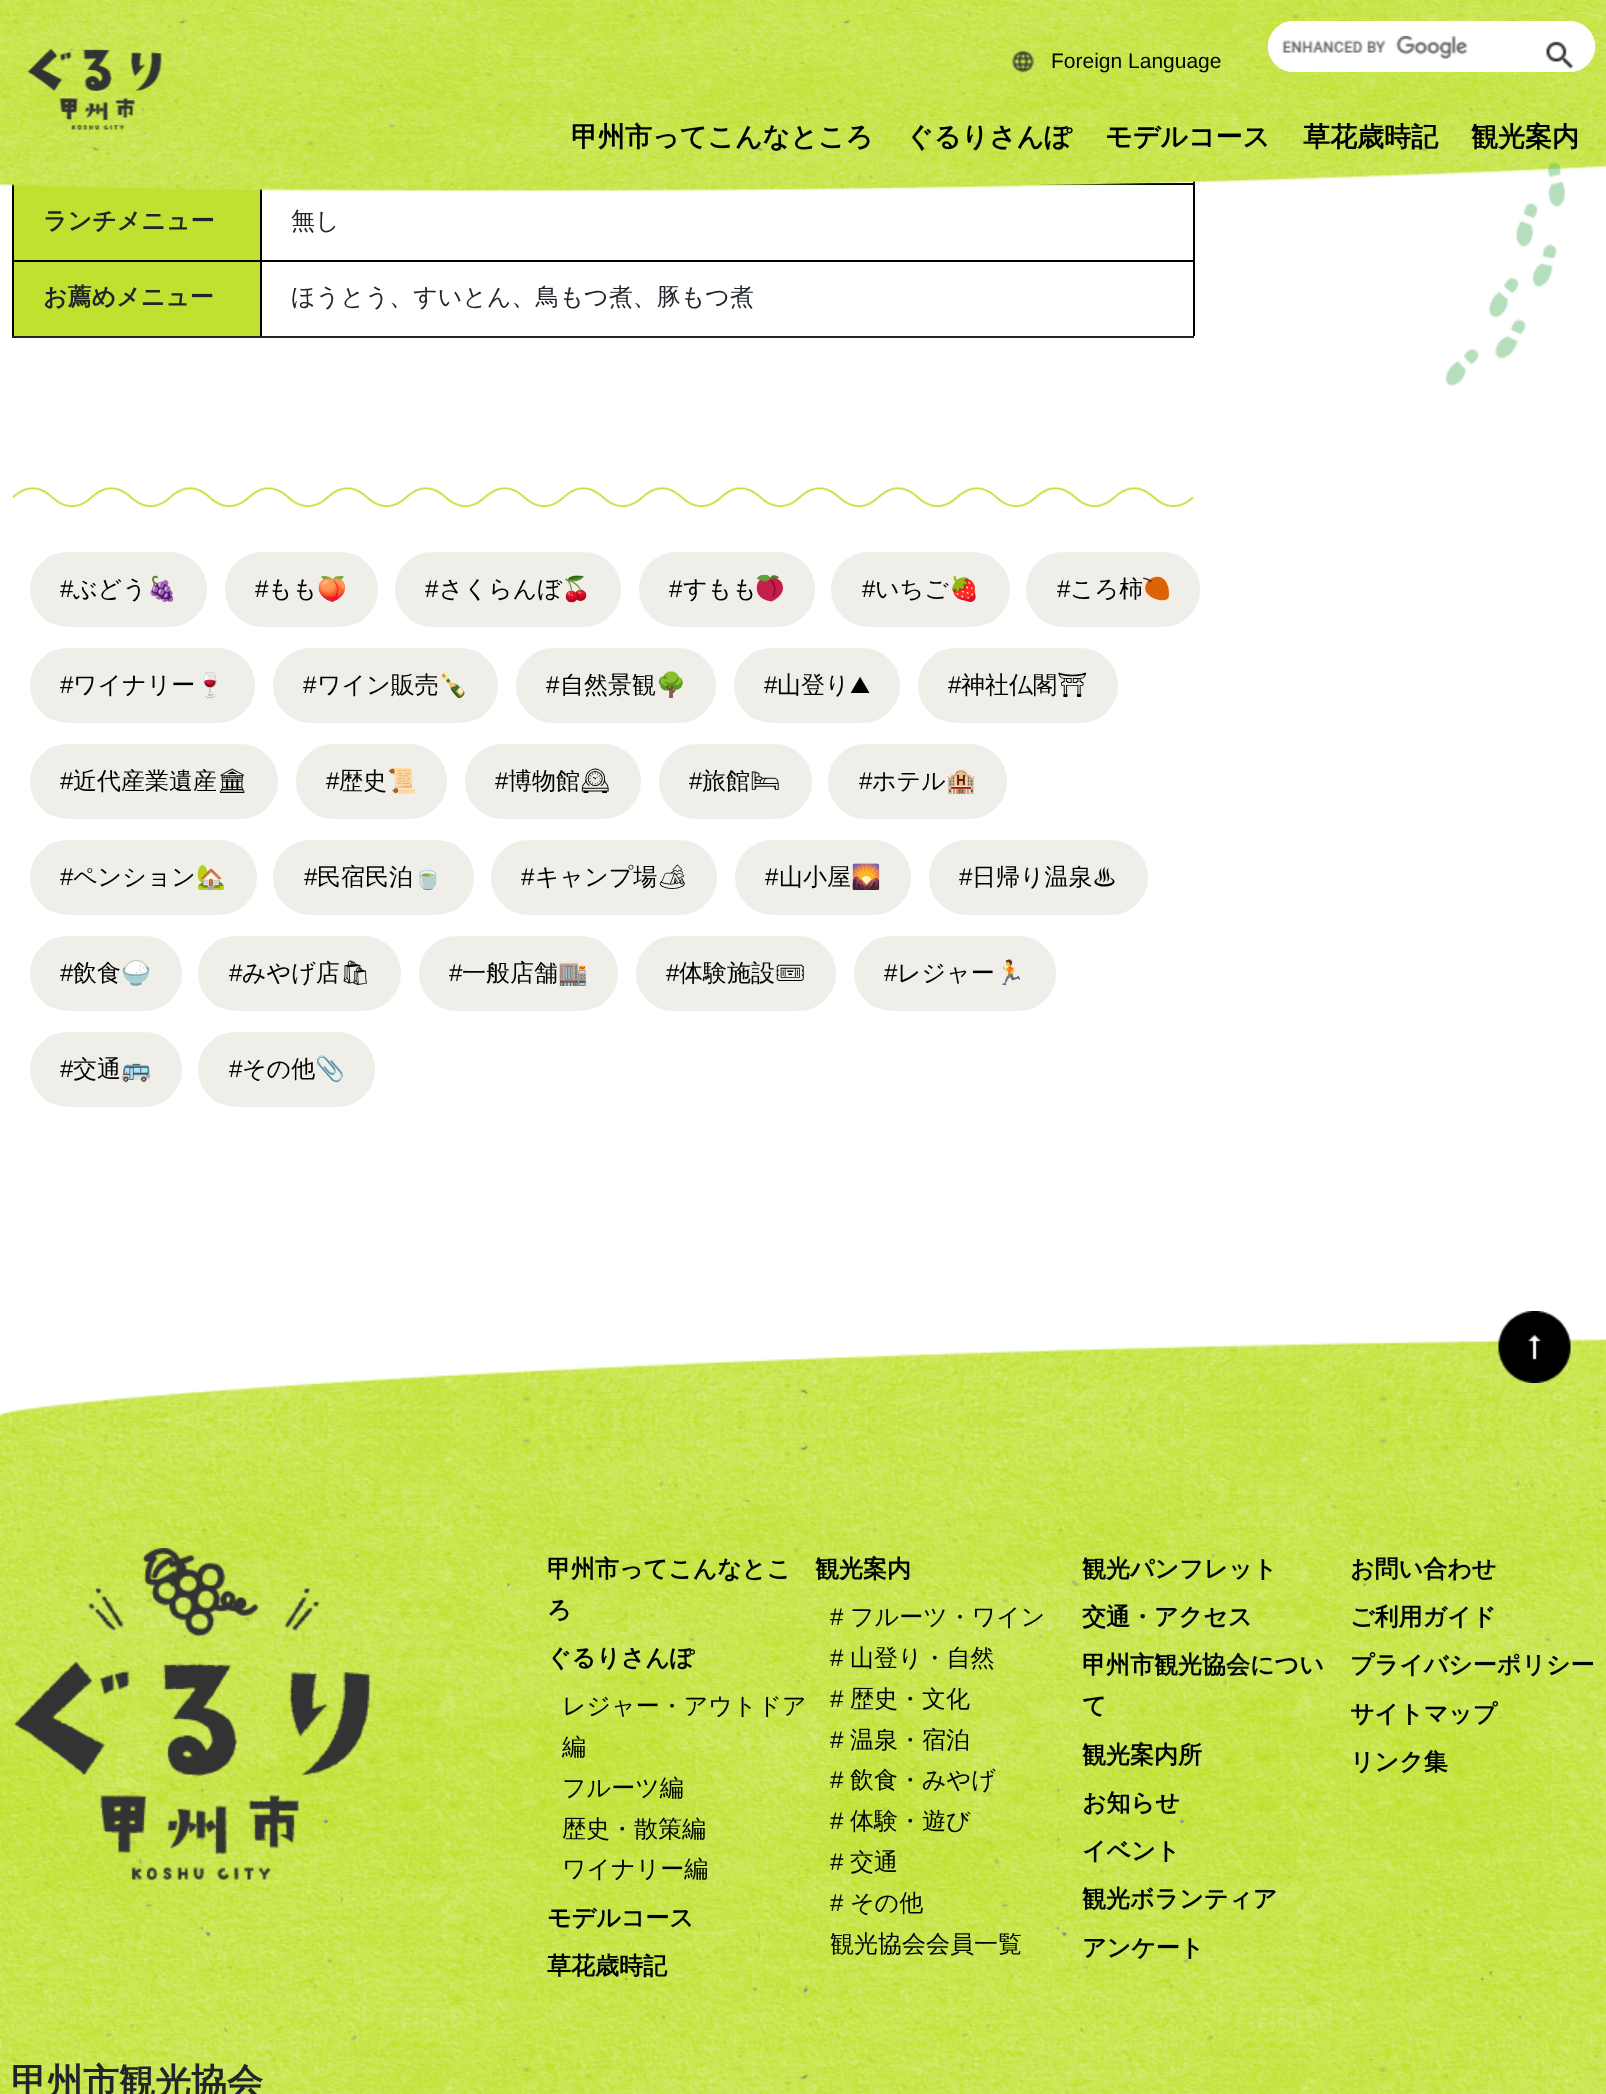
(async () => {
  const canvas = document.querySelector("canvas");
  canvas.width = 1606;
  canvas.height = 2094;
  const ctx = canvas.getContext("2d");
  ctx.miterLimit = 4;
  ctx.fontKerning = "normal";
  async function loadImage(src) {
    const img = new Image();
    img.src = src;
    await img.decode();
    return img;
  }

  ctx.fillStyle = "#ffffff";
  ctx.fillRect(0, 0, 1606, 2094);
  for (const [x, y, w, h, color] of [
    [1193, 181, 2, 2, "#000000"],
    [14, 184, 246, 76, "#bfe230"],
    [12, 183, 2, 77, "#000000"],
    [1039, 183, 155, 2, "#000000"],
    [1193, 183, 2, 77, "#000000"],
    [260, 183, 2, 77, "#000000"],
  ]) {
    ctx.fillStyle = color;
    ctx.fillRect(x, y, w, h);
  }
  ctx.drawImage(await loadImage("img/1.png"), 0, 0, 1606, 191);
  ctx.drawImage(await loadImage("img/2.png"), 27, 48, 135, 83);
  ctx.drawImage(await loadImage("img/3.png"), 1011, 50, 24, 23);
  ctx.fillStyle = "#ffffff";
  ctx.beginPath();
  ctx.roundRect(1268, 21, 327, 51, 25.5);
  ctx.fill();
  ctx.drawImage(await loadImage("img/4.png"), 1282, 36, 186, 23);
  ctx.beginPath();
  ctx.roundRect(1269, 22, 325, 49, 24.5);
  ctx.strokeStyle = "#ffffff";
  ctx.lineWidth = 2;
  ctx.stroke();
  ctx.drawImage(await loadImage("img/5.png"), 1546, 41, 28, 29);
  ctx.drawImage(await loadImage("img/6.png"), 1445, 162, 121, 224);
  for (const [x, y, w, h, color] of [
    [14, 262, 246, 74, "#bfe230"],
    [12, 260, 1182, 2, "#000000"],
    [12, 260, 2, 76, "#000000"],
    [1193, 260, 2, 76, "#000000"],
    [260, 260, 2, 76, "#000000"],
    [12, 336, 1182, 2, "#212529"],
  ]) {
    ctx.fillStyle = color;
    ctx.fillRect(x, y, w, h);
  }
  ctx.drawImage(await loadImage("img/7.png"), 12, 487, 1182, 20);
  ctx.fillStyle = "#f0eee9";
  ctx.beginPath();
  ctx.roundRect(31, 553, 175, 73, 36.5);
  ctx.fill();
  ctx.strokeStyle = "#f0eee9";
  ctx.stroke();
  ctx.beginPath();
  ctx.roundRect(226, 553, 151, 73, 36.5);
  ctx.fill();
  ctx.stroke();
  ctx.beginPath();
  ctx.roundRect(396, 553, 224, 73, 36.5);
  ctx.fill();
  ctx.stroke();
  ctx.beginPath();
  ctx.roundRect(640, 553, 174, 73, 36.5);
  ctx.fill();
  ctx.stroke();
  ctx.drawImage(await loadImage("img/8.png"), 756, 575, 27, 27);
  ctx.beginPath();
  ctx.roundRect(832, 553, 177, 73, 36.5);
  ctx.fill();
  ctx.stroke();
  ctx.beginPath();
  ctx.roundRect(1027, 553, 172, 73, 36.5);
  ctx.fill();
  ctx.stroke();
  ctx.drawImage(await loadImage("img/9.png"), 1143, 576, 26, 25);
  ctx.beginPath();
  ctx.roundRect(31, 649, 223, 73, 36.5);
  ctx.fill();
  ctx.stroke();
  ctx.beginPath();
  ctx.roundRect(274, 649, 223, 73, 36.5);
  ctx.fill();
  ctx.stroke();
  ctx.beginPath();
  ctx.roundRect(517, 649, 198, 73, 36.5);
  ctx.fill();
  ctx.stroke();
  ctx.beginPath();
  ctx.roundRect(735, 649, 164, 73, 36.5);
  ctx.fill();
  ctx.stroke();
  ctx.beginPath();
  ctx.roundRect(919, 649, 198, 73, 36.5);
  ctx.fill();
  ctx.stroke();
  ctx.beginPath();
  ctx.roundRect(31, 745, 246, 73, 36.5);
  ctx.fill();
  ctx.stroke();
  ctx.beginPath();
  ctx.roundRect(297, 745, 149, 73, 36.5);
  ctx.fill();
  ctx.stroke();
  ctx.beginPath();
  ctx.roundRect(466, 745, 174, 73, 36.5);
  ctx.fill();
  ctx.stroke();
  ctx.beginPath();
  ctx.roundRect(660, 745, 151, 73, 36.5);
  ctx.fill();
  ctx.stroke();
  ctx.beginPath();
  ctx.roundRect(829, 745, 177, 73, 36.5);
  ctx.fill();
  ctx.stroke();
  ctx.beginPath();
  ctx.roundRect(31, 841, 225, 73, 36.5);
  ctx.fill();
  ctx.stroke();
  ctx.beginPath();
  ctx.roundRect(274, 841, 199, 73, 36.5);
  ctx.fill();
  ctx.stroke();
  ctx.beginPath();
  ctx.roundRect(492, 841, 224, 73, 36.5);
  ctx.fill();
  ctx.stroke();
  ctx.beginPath();
  ctx.roundRect(736, 841, 174, 73, 36.5);
  ctx.fill();
  ctx.stroke();
  ctx.beginPath();
  ctx.roundRect(930, 841, 217, 73, 36.5);
  ctx.fill();
  ctx.stroke();
  ctx.beginPath();
  ctx.roundRect(31, 937, 150, 73, 36.5);
  ctx.fill();
  ctx.stroke();
  ctx.beginPath();
  ctx.roundRect(199, 937, 201, 73, 36.5);
  ctx.fill();
  ctx.stroke();
  ctx.beginPath();
  ctx.roundRect(420, 937, 197, 73, 36.5);
  ctx.fill();
  ctx.stroke();
  ctx.beginPath();
  ctx.roundRect(637, 937, 198, 73, 36.5);
  ctx.fill();
  ctx.stroke();
  ctx.beginPath();
  ctx.roundRect(855, 937, 200, 73, 36.5);
  ctx.fill();
  ctx.stroke();
  ctx.beginPath();
  ctx.roundRect(31, 1033, 150, 73, 36.5);
  ctx.fill();
  ctx.stroke();
  ctx.beginPath();
  ctx.roundRect(199, 1033, 175, 73, 36.5);
  ctx.fill();
  ctx.stroke();
  ctx.drawImage(await loadImage("img/10.png"), 0, 1339, 1606, 755);
  ctx.drawImage(await loadImage("img/11.png"), 1498, 1311, 73, 72);
  ctx.drawImage(await loadImage("img/12.png"), 13, 1548, 358, 333);
  ctx.font = "21px Liberation Sans";
  ctx.fillStyle = "#000000";
  ctx.fillText("Foreign Language", 1051, 68);
  ctx.font = "bold 27px WenQuanYi Zen Hei";
  for (const [text, x, y] of [
    ["甲州市ってこんなところ", 571, 146],
    ["ぐるりさんぽ", 906, 146],
    ["モデルコース", 1105, 146],
    ["草花歳時記", 1303, 146],
    ["観光案内", 1471, 146],
  ]) {
    ctx.fillText(text, x, y);
  }
  ctx.font = "bold 24px WenQuanYi Zen Hei";
  ctx.fillStyle = "#212529";
  ctx.fillText("ランチメニュー", 43, 229);
  ctx.font = "500 24px WenQuanYi Zen Hei";
  ctx.fillText("無し", 291, 229);
  ctx.font = "bold 24px WenQuanYi Zen Hei";
  ctx.fillText("お薦めメニュー", 43, 305);
  ctx.font = "500 24px WenQuanYi Zen Hei";
  ctx.fillText("ほうとう、すいとん、鳥もつ煮、豚もつ煮", 291, 305);
  ctx.font = "24px Liberation Sans";
  ctx.fillStyle = "#000000";
  ctx.fillText("#", 60, 597);
  ctx.font = "500 24px WenQuanYi Zen Hei";
  ctx.fillText("ぶどう", 73, 597);
  ctx.font = "24px Noto Color Emoji";
  ctx.fillText("🍇", 147, 597);
  ctx.font = "24px Liberation Sans";
  ctx.fillText("#", 255, 597);
  ctx.font = "500 24px WenQuanYi Zen Hei";
  ctx.fillText("もも", 268, 597);
  ctx.font = "24px Noto Color Emoji";
  ctx.fillText("🍑", 317, 597);
  ctx.font = "24px Liberation Sans";
  ctx.fillText("#", 425, 597);
  ctx.font = "500 24px WenQuanYi Zen Hei";
  ctx.fillText("さくらんぼ", 439, 597);
  ctx.font = "24px Noto Color Emoji";
  ctx.fillText("🍒", 561, 597);
  ctx.font = "24px Liberation Sans";
  ctx.fillText("#", 669, 597);
  ctx.font = "500 24px WenQuanYi Zen Hei";
  ctx.fillText("すもも", 683, 597);
  ctx.font = "24px Liberation Sans";
  ctx.fillText("#", 862, 597);
  ctx.font = "500 24px WenQuanYi Zen Hei";
  ctx.fillText("いちご", 875, 597);
  ctx.font = "24px Noto Color Emoji";
  ctx.fillText("🍓", 949, 597);
  ctx.font = "24px Liberation Sans";
  ctx.fillText("#", 1057, 597);
  ctx.font = "500 24px WenQuanYi Zen Hei";
  ctx.fillText("ころ柿", 1070, 597);
  ctx.font = "24px Liberation Sans";
  ctx.fillText("#", 60, 693);
  ctx.font = "500 24px WenQuanYi Zen Hei";
  ctx.fillText("ワイナリー", 73, 693);
  ctx.font = "24px Noto Color Emoji";
  ctx.fillText("🍷", 195, 693);
  ctx.font = "24px Liberation Sans";
  ctx.fillText("#", 303, 693);
  ctx.font = "500 24px WenQuanYi Zen Hei";
  ctx.fillText("ワイン販売", 317, 693);
  ctx.font = "24px Noto Color Emoji";
  ctx.fillText("🍾", 438, 693);
  ctx.font = "24px Liberation Sans";
  ctx.fillText("#", 546, 693);
  ctx.font = "500 24px WenQuanYi Zen Hei";
  ctx.fillText("自然景観", 560, 693);
  ctx.font = "24px Noto Color Emoji";
  ctx.fillText("🌳", 656, 693);
  ctx.font = "24px Liberation Sans";
  ctx.fillText("#", 764, 693);
  ctx.font = "500 24px WenQuanYi Zen Hei";
  ctx.fillText("山登り", 777, 693);
  ctx.font = "24px FreeSerif";
  ctx.fillText("⛰", 850, 693);
  ctx.font = "24px Liberation Sans";
  ctx.fillText("#", 948, 693);
  ctx.font = "500 24px WenQuanYi Zen Hei";
  ctx.fillText("神社仏閣", 961, 693);
  ctx.font = "24px Noto Emoji";
  ctx.fillText("⛩", 1057, 693);
  ctx.font = "24px Liberation Sans";
  ctx.fillText("#", 60, 789);
  ctx.font = "500 24px WenQuanYi Zen Hei";
  ctx.fillText("近代産業遺産", 73, 789);
  ctx.font = "24px Noto Emoji";
  ctx.fillText("🏛", 217, 789);
  ctx.font = "24px Liberation Sans";
  ctx.fillText("#", 326, 789);
  ctx.font = "500 24px WenQuanYi Zen Hei";
  ctx.fillText("歴史", 339, 789);
  ctx.font = "24px Noto Color Emoji";
  ctx.fillText("📜", 387, 789);
  ctx.font = "24px Liberation Sans";
  ctx.fillText("#", 495, 789);
  ctx.font = "500 24px WenQuanYi Zen Hei";
  ctx.fillText("博物館", 508, 789);
  ctx.font = "24px Noto Emoji";
  ctx.fillText("🕰", 580, 789);
  ctx.font = "24px Liberation Sans";
  ctx.fillText("#", 689, 789);
  ctx.font = "500 24px WenQuanYi Zen Hei";
  ctx.fillText("旅館", 702, 789);
  ctx.font = "24px Noto Emoji";
  ctx.fillText("🛏", 750, 789);
  ctx.font = "24px Liberation Sans";
  ctx.fillText("#", 859, 789);
  ctx.font = "500 24px WenQuanYi Zen Hei";
  ctx.fillText("ホテル", 872, 789);
  ctx.font = "24px Noto Color Emoji";
  ctx.fillText("🏨", 946, 789);
  ctx.font = "24px Liberation Sans";
  ctx.fillText("#", 60, 885);
  ctx.font = "500 24px WenQuanYi Zen Hei";
  ctx.fillText("ペンション", 73, 885);
  ctx.font = "24px Noto Color Emoji";
  ctx.fillText("🏡", 196, 885);
  ctx.font = "24px Liberation Sans";
  ctx.fillText("#", 304, 885);
  ctx.font = "500 24px WenQuanYi Zen Hei";
  ctx.fillText("民宿民泊", 317, 885);
  ctx.font = "24px Noto Color Emoji";
  ctx.fillText("🍵", 413, 885);
  ctx.font = "24px Liberation Sans";
  ctx.fillText("#", 521, 885);
  ctx.font = "500 24px WenQuanYi Zen Hei";
  ctx.fillText("キャンプ場", 535, 885);
  ctx.font = "24px Noto Emoji";
  ctx.fillText("🏕", 657, 885);
  ctx.font = "24px Liberation Sans";
  ctx.fillText("#", 765, 885);
  ctx.font = "500 24px WenQuanYi Zen Hei";
  ctx.fillText("山小屋", 779, 885);
  ctx.font = "24px Noto Color Emoji";
  ctx.fillText("🌄", 851, 885);
  ctx.font = "24px Liberation Sans";
  ctx.fillText("#", 959, 885);
  ctx.font = "500 24px WenQuanYi Zen Hei";
  ctx.fillText("日帰り温泉♨", 972, 885);
  ctx.font = "24px Liberation Sans";
  ctx.fillText("#", 60, 981);
  ctx.font = "500 24px WenQuanYi Zen Hei";
  ctx.fillText("飲食", 73, 981);
  ctx.font = "24px Noto Color Emoji";
  ctx.fillText("🍚", 121, 981);
  ctx.font = "24px Liberation Sans";
  ctx.fillText("#", 229, 981);
  ctx.font = "500 24px WenQuanYi Zen Hei";
  ctx.fillText("みやげ店", 242, 981);
  ctx.font = "24px Noto Emoji";
  ctx.fillText("🛍", 340, 981);
  ctx.font = "24px Liberation Sans";
  ctx.fillText("#", 449, 981);
  ctx.font = "500 24px WenQuanYi Zen Hei";
  ctx.fillText("一般店舗", 462, 981);
  ctx.font = "24px Noto Color Emoji";
  ctx.fillText("🏬", 558, 981);
  ctx.font = "24px Liberation Sans";
  ctx.fillText("#", 666, 981);
  ctx.font = "500 24px WenQuanYi Zen Hei";
  ctx.fillText("体験施設", 679, 981);
  ctx.font = "24px Noto Emoji";
  ctx.fillText("🎟", 775, 981);
  ctx.font = "24px Liberation Sans";
  ctx.fillText("#", 884, 981);
  ctx.font = "500 24px WenQuanYi Zen Hei";
  ctx.fillText("レジャー", 897, 981);
  ctx.font = "24px Noto Color Emoji";
  ctx.fillText("🏃", 995, 981);
  ctx.font = "24px Liberation Sans";
  ctx.fillText("#", 60, 1077);
  ctx.font = "500 24px WenQuanYi Zen Hei";
  ctx.fillText("交通", 73, 1077);
  ctx.font = "24px Noto Color Emoji";
  ctx.fillText("🚌", 121, 1077);
  ctx.font = "24px Liberation Sans";
  ctx.fillText("#", 229, 1077);
  ctx.font = "500 24px WenQuanYi Zen Hei";
  ctx.fillText("その他", 242, 1077);
  ctx.font = "24px Noto Color Emoji";
  ctx.fillText("📎", 315, 1077);
  ctx.font = "bold 24px WenQuanYi Zen Hei";
  for (const [text, x, y] of [
    ["甲州市ってこんなとこ", 547, 1577],
    ["ろ", 547, 1618],
    ["ぐるりさんぽ", 547, 1666],
  ]) {
    ctx.fillText(text, x, y);
  }
  ctx.font = "500 24px WenQuanYi Zen Hei";
  for (const [text, x, y] of [
    ["レジャー・アウトドア", 562, 1714],
    ["編", 562, 1755],
    ["フルーツ編", 562, 1796],
    ["歴史・散策編", 562, 1837],
    ["ワイナリー編", 562, 1877],
  ]) {
    ctx.fillText(text, x, y);
  }
  ctx.font = "bold 24px WenQuanYi Zen Hei";
  for (const [text, x, y] of [
    ["モデルコース", 547, 1926],
    ["草花歳時記", 547, 1974],
    ["観光案内", 815, 1577],
  ]) {
    ctx.fillText(text, x, y);
  }
  ctx.font = "24px Liberation Sans";
  ctx.fillText("#", 830, 1625);
  ctx.font = "500 24px WenQuanYi Zen Hei";
  ctx.fillText("フルーツ・ワイン", 850, 1625);
  ctx.font = "24px Liberation Sans";
  ctx.fillText("#", 830, 1666);
  ctx.font = "500 24px WenQuanYi Zen Hei";
  ctx.fillText("山登り・自然", 850, 1666);
  ctx.font = "24px Liberation Sans";
  ctx.fillText("#", 830, 1707);
  ctx.font = "500 24px WenQuanYi Zen Hei";
  ctx.fillText("歴史・文化", 850, 1707);
  ctx.font = "24px Liberation Sans";
  ctx.fillText("#", 830, 1748);
  ctx.font = "500 24px WenQuanYi Zen Hei";
  ctx.fillText("温泉・宿泊", 850, 1748);
  ctx.font = "24px Liberation Sans";
  ctx.fillText("#", 830, 1788);
  ctx.font = "500 24px WenQuanYi Zen Hei";
  ctx.fillText("飲食・みやげ", 850, 1788);
  ctx.font = "24px Liberation Sans";
  ctx.fillText("#", 830, 1829);
  ctx.font = "500 24px WenQuanYi Zen Hei";
  ctx.fillText("体験・遊び", 850, 1829);
  ctx.font = "24px Liberation Sans";
  ctx.fillText("#", 830, 1870);
  ctx.font = "500 24px WenQuanYi Zen Hei";
  ctx.fillText("交通", 850, 1870);
  ctx.font = "24px Liberation Sans";
  ctx.fillText("#", 830, 1911);
  ctx.font = "500 24px WenQuanYi Zen Hei";
  ctx.fillText("その他", 850, 1911);
  ctx.fillText("観光協会会員一覧", 830, 1952);
  ctx.font = "bold 24px WenQuanYi Zen Hei";
  for (const [text, x, y] of [
    ["観光パンフレット", 1082, 1577],
    ["交通・アクセス", 1082, 1625],
    ["甲州市観光協会につい", 1082, 1673],
    ["て", 1082, 1714],
    ["観光案内所", 1082, 1763],
    ["お知らせ", 1082, 1811],
    ["イベント", 1082, 1859],
    ["観光ボランティア", 1082, 1907],
    ["アンケート", 1082, 1956],
    ["お問い合わせ", 1350, 1577],
    ["ご利用ガイド", 1350, 1625],
    ["プライバシーポリシー", 1350, 1673],
    ["サイトマップ", 1350, 1722],
    ["リンク集", 1350, 1770],
  ]) {
    ctx.fillText(text, x, y);
  }
  ctx.font = "bold 36px WenQuanYi Zen Hei";
  ctx.fillStyle = "#212529";
  ctx.fillText("甲州市観光協会", 11, 2094);
})();
